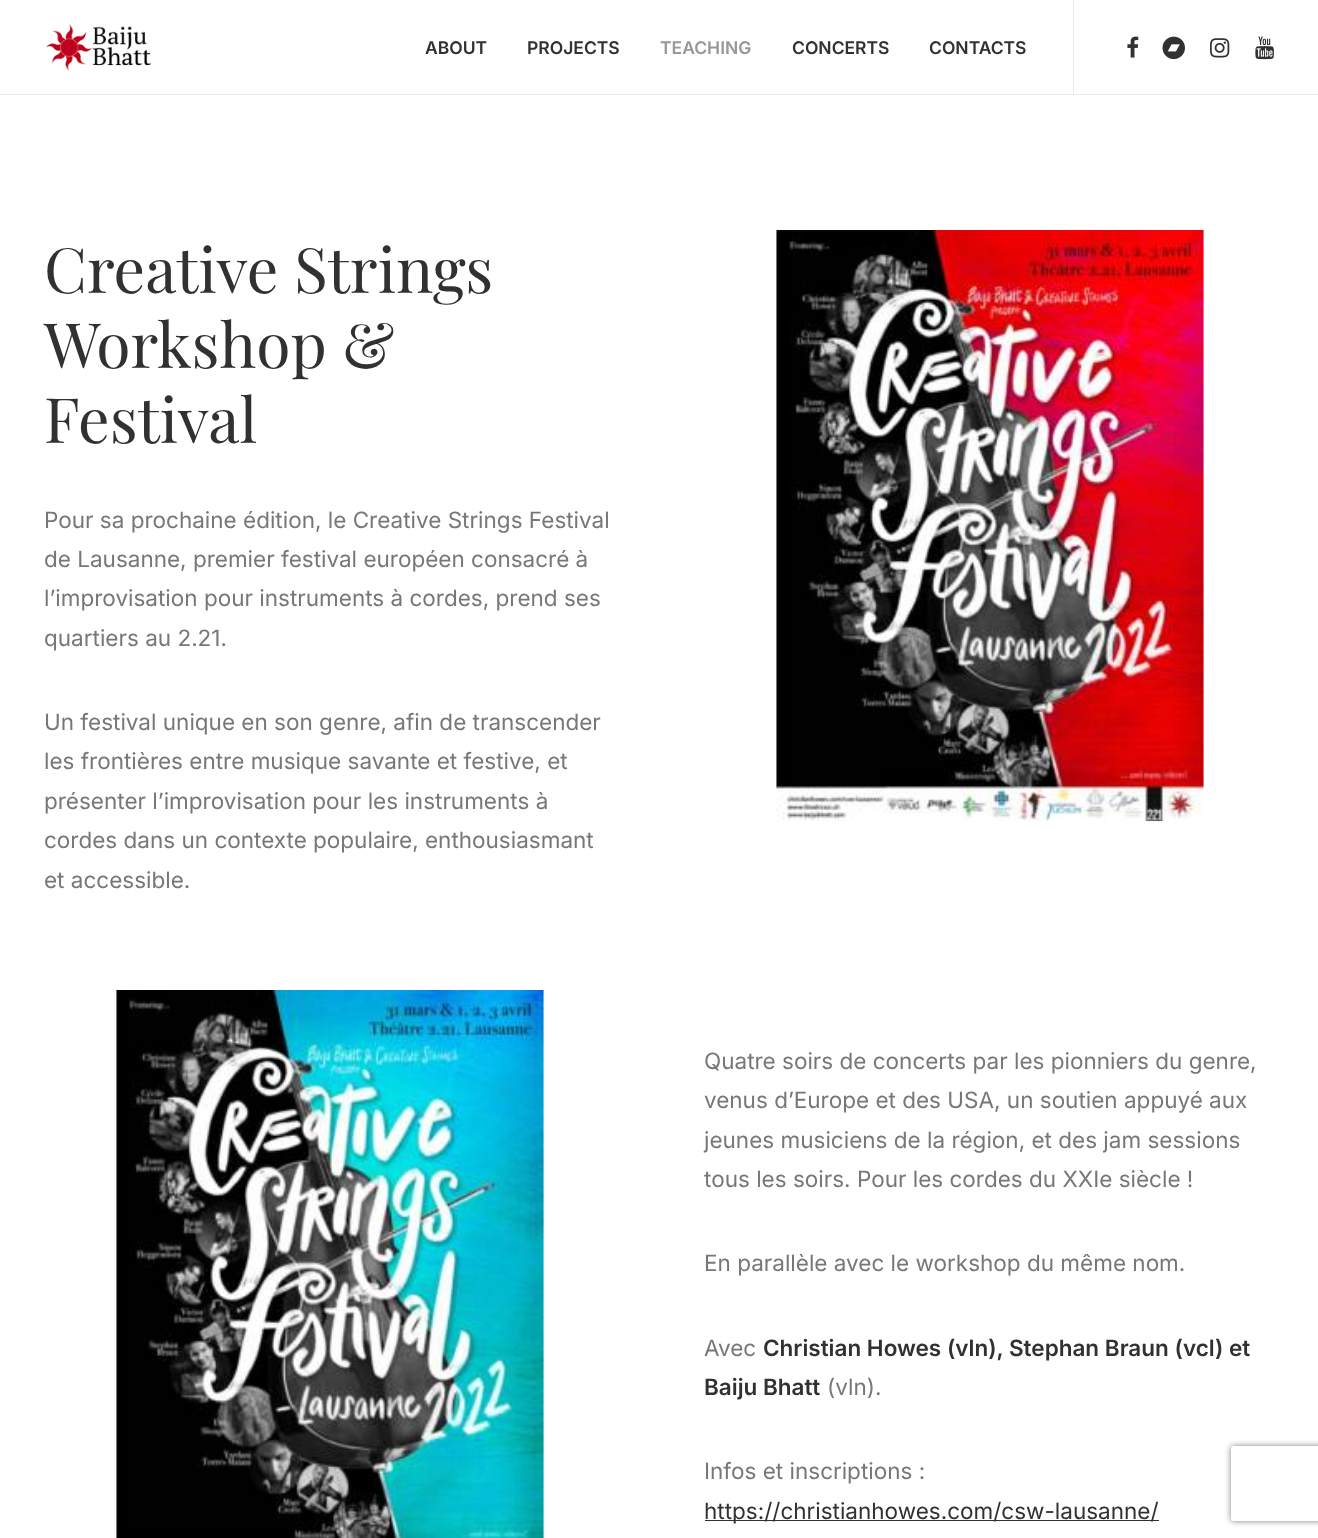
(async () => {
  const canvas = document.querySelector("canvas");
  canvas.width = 1318;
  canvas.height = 1538;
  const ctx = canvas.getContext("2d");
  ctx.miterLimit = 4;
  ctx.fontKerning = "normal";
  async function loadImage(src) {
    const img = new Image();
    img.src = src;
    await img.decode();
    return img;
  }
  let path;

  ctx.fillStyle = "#ffffff";
  ctx.fillRect(0, 0, 1318, 1538);
  ctx.fillStyle = "#ebebeb";
  ctx.fillRect(1073, 0, 1, 95);
  ctx.drawImage(await loadImage("img/1.png"), 46, 24, 105, 47);
  ctx.drawImage(await loadImage("img/2.png"), 1127, 36, 12, 22);
  ctx.drawImage(await loadImage("img/3.png"), 1162, 36, 23, 24);
  ctx.drawImage(await loadImage("img/4.png"), 1210, 38, 20, 20);
  ctx.drawImage(await loadImage("img/5.png"), 1255, 36, 19, 24);
  ctx.fillRect(0, 94, 1318, 1);
  ctx.fillStyle = "#dadada";
  ctx.fillRect(1073, 94, 1, 1);
  ctx.drawImage(await loadImage("img/6.png"), 776, 230, 428, 592);
  ctx.drawImage(await loadImage("img/7.png"), 116, 990, 428, 548);
  ctx.fillStyle = "#303133";
  ctx.fillRect(705, 1520, 454, 1);
  ctx.save();
  path = new Path2D("M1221 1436H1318V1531H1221ZM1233.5 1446H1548.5C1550 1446 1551 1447 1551 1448.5V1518.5C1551 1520 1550 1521 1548.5 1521H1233.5C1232 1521 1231 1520 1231 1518.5V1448.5C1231 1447 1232 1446 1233.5 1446Z");
  ctx.clip(path, "evenodd");
  ctx.fillStyle = "#808080";
  ctx.filter = "blur(3px)";
  ctx.beginPath();
  ctx.roundRect(1231, 1446, 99, 75, 2.5);
  ctx.fill();
  ctx.filter = "none";
  ctx.restore();
  ctx.font = "600 17.5px Inter";
  ctx.fillText("ABOUT", 425, 54);
  ctx.fillText("PROJECTS", 527, 54);
  ctx.fillStyle = "#989899";
  ctx.fillText("TEACHING", 660, 54);
  ctx.fillStyle = "#303133";
  ctx.fillText("CONCERTS", 792, 54);
  ctx.fillText("CONTACTS", 929, 54);
  ctx.font = "62.5px Playfair Display";
  for (const [text, x, y] of [
    ["Creative Strings", 44, 293],
    ["Workshop &", 44, 368],
    ["Festival", 44, 443],
  ]) {
    ctx.fillText(text, x, y);
  }
  ctx.font = "22.5px Inter";
  ctx.fillStyle = "#777777";
  for (const [text, x, y] of [
    ["Pour sa prochaine édition, le Creative Strings Festival", 44, 528],
    ["de Lausanne, premier festival européen consacré à", 44, 567],
    ["l’improvisation pour instruments à cordes, prend ses", 44, 606],
    ["quartiers au 2.21.", 44, 646],
    ["Un festival unique en son genre, afin de transcender", 44, 730],
    ["les frontières entre musique savante et festive, et", 44, 769],
    ["présenter l’improvisation pour les instruments à", 44, 809],
    ["cordes dans un contexte populaire, enthousiasmant", 44, 848],
    ["et accessible.", 44, 888],
    ["Quatre soirs de concerts par les pionniers du genre,", 704, 1069],
    ["venus d’Europe et des USA, un soutien appuyé aux", 704, 1108],
    ["jeunes musiciens de la région, et des jam sessions", 704, 1148],
    ["tous les soirs. Pour les cordes du XXIe siècle !", 704, 1187],
    ["En parallèle avec le workshop du même nom.", 704, 1271],
    ["Avec", 704, 1356],
  ]) {
    ctx.fillText(text, x, y);
  }
  ctx.font = "600 22.5px Inter";
  ctx.fillStyle = "#303133";
  ctx.fillText("Christian Howes (vln), Stephan Braun (vcl) et", 763, 1356);
  ctx.fillText("Baiju Bhatt", 704, 1395);
  ctx.font = "22.5px Inter";
  ctx.fillStyle = "#777777";
  ctx.fillText("(vln).", 827, 1395);
  ctx.fillText("Infos et inscriptions :", 704, 1479);
  ctx.fillStyle = "#303133";
  ctx.fillText("https://christianhowes.com/csw-lausanne/", 704, 1519);
})();
